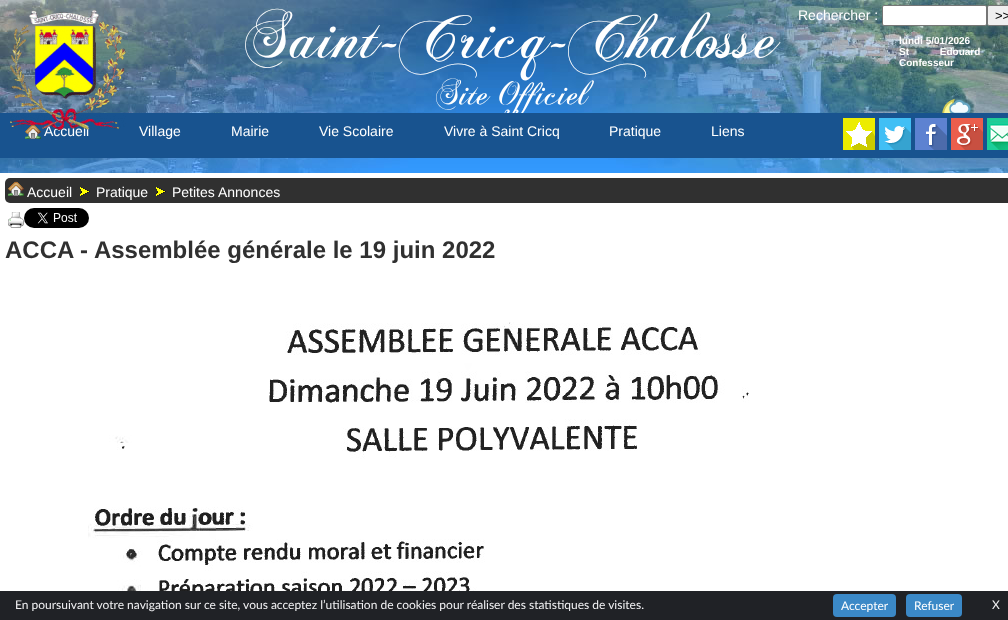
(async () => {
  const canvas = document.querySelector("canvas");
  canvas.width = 1008;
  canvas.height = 620;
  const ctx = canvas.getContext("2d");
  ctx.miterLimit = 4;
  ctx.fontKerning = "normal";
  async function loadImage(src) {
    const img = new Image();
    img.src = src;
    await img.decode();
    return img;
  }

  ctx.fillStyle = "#ffffff";
  ctx.fillRect(0, 0, 1008, 620);
  ctx.drawImage(await loadImage("img/1.png"), 0, 0, 1008, 173);
  ctx.beginPath();
  ctx.roundRect(882.5, 5.5, 104, 20, 1.5);
  ctx.fill();
  ctx.strokeStyle = "#767676";
  ctx.stroke();
  ctx.fillStyle = "#efefef";
  ctx.beginPath();
  ctx.roundRect(987.5, 5.5, 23, 20, 1.5);
  ctx.fill();
  ctx.stroke();
  ctx.drawImage(await loadImage("img/3.png"), 942, 98, 29, 15);
  ctx.fillStyle = "#303030";
  ctx.beginPath();
  ctx.roundRect(5, 178, 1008, 25, 5);
  ctx.fill();
  ctx.drawImage(await loadImage("img/10.png"), 8, 181, 16, 15);
  ctx.drawImage(await loadImage("img/11.png"), 80, 187, 10, 9);
  ctx.drawImage(await loadImage("img/11.png"), 156, 187, 10, 9);
  ctx.drawImage(await loadImage("img/12.png"), 8, 212, 16, 16);
  ctx.drawImage(await loadImage("img/13.png"), 24, 208, 65, 20);
  ctx.drawImage(await loadImage("img/14.png"), 88, 322, 661, 269);
  ctx.fillStyle = "#202226";
  ctx.fillRect(0, 591, 1008, 29);
  ctx.fillStyle = "#3b89c7";
  ctx.beginPath();
  ctx.roundRect(833, 594, 63, 23, 4);
  ctx.fill();
  ctx.beginPath();
  ctx.roundRect(906, 594, 56, 23, 4);
  ctx.fill();
  ctx.font = "500 68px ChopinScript";
  ctx.fillStyle = "#ffffff";
  ctx.fillText("Saint-Cricq-Chalosse", 245, 57);
  ctx.font = "14px Liberation Sans";
  ctx.fillText("Rechercher :", 798, 20);
  ctx.font = "13px Liberation Sans";
  ctx.fillStyle = "#000000";
  ctx.fillText(">>", 995, 20);
  ctx.font = "bold 10px Liberation Sans";
  ctx.fillStyle = "#ffffff";
  ctx.fillText("lundi 5/01/2026", 899, 44);
  ctx.wordSpacing = "28px";
  ctx.fillText("St Edouard", 899, 55);
  ctx.wordSpacing = "0px";
  ctx.fillText("Confesseur", 899, 66);
  ctx.font = "500 36px ChopinScript";
  ctx.fillText("Site Officiel", 436, 104);
  ctx.fillStyle = "#18538f";
  ctx.fillRect(0, 113, 1008, 45);
  ctx.drawImage(await loadImage("img/4.png"), 25, 125, 16, 14);
  ctx.font = "14px Liberation Sans";
  ctx.fillStyle = "#ffffff";
  ctx.fillText("Accueil", 44, 136);
  ctx.drawImage(await loadImage("img/2.png"), 10, 10, 116, 120);
  for (const [text, x, y] of [
    ["Village", 139, 136],
    ["Mairie", 231, 136],
    ["Vie Scolaire", 319, 136],
    ["Vivre à Saint Cricq", 444, 136],
    ["Pratique", 609, 136],
    ["Liens", 711, 136],
  ]) {
    ctx.fillText(text, x, y);
  }
  ctx.drawImage(await loadImage("img/5.png"), 843, 118, 32, 32);
  ctx.drawImage(await loadImage("img/6.png"), 879, 118, 32, 32);
  ctx.drawImage(await loadImage("img/7.png"), 915, 118, 32, 32);
  ctx.drawImage(await loadImage("img/8.png"), 951, 118, 32, 32);
  ctx.drawImage(await loadImage("img/9.png"), 987, 118, 21, 32);
  for (const [text, x, y] of [
    ["Accueil", 27, 197],
    ["Pratique", 96, 197],
    ["Petites Annonces", 172, 197],
  ]) {
    ctx.fillText(text, x, y);
  }
  ctx.font = "bold 24px Liberation Sans";
  ctx.fillStyle = "#303030";
  ctx.fillText("ACCA - Assemblée générale le 19 juin 2022", 5, 258);
  ctx.font = "12px Lato";
  ctx.fillStyle = "#f1f1f3";
  ctx.fillText("En poursuivant votre navigation sur ce site, vous acceptez l’utilisation de cookies pour réaliser des statistiques de visites.", 15, 609);
  ctx.fillStyle = "#ffffff";
  ctx.fillText("Accepter", 841, 610);
  ctx.fillText("Refuser", 914, 610);
  ctx.fillStyle = "#f1f1f3";
  ctx.fillText("X", 992, 609);
})();
